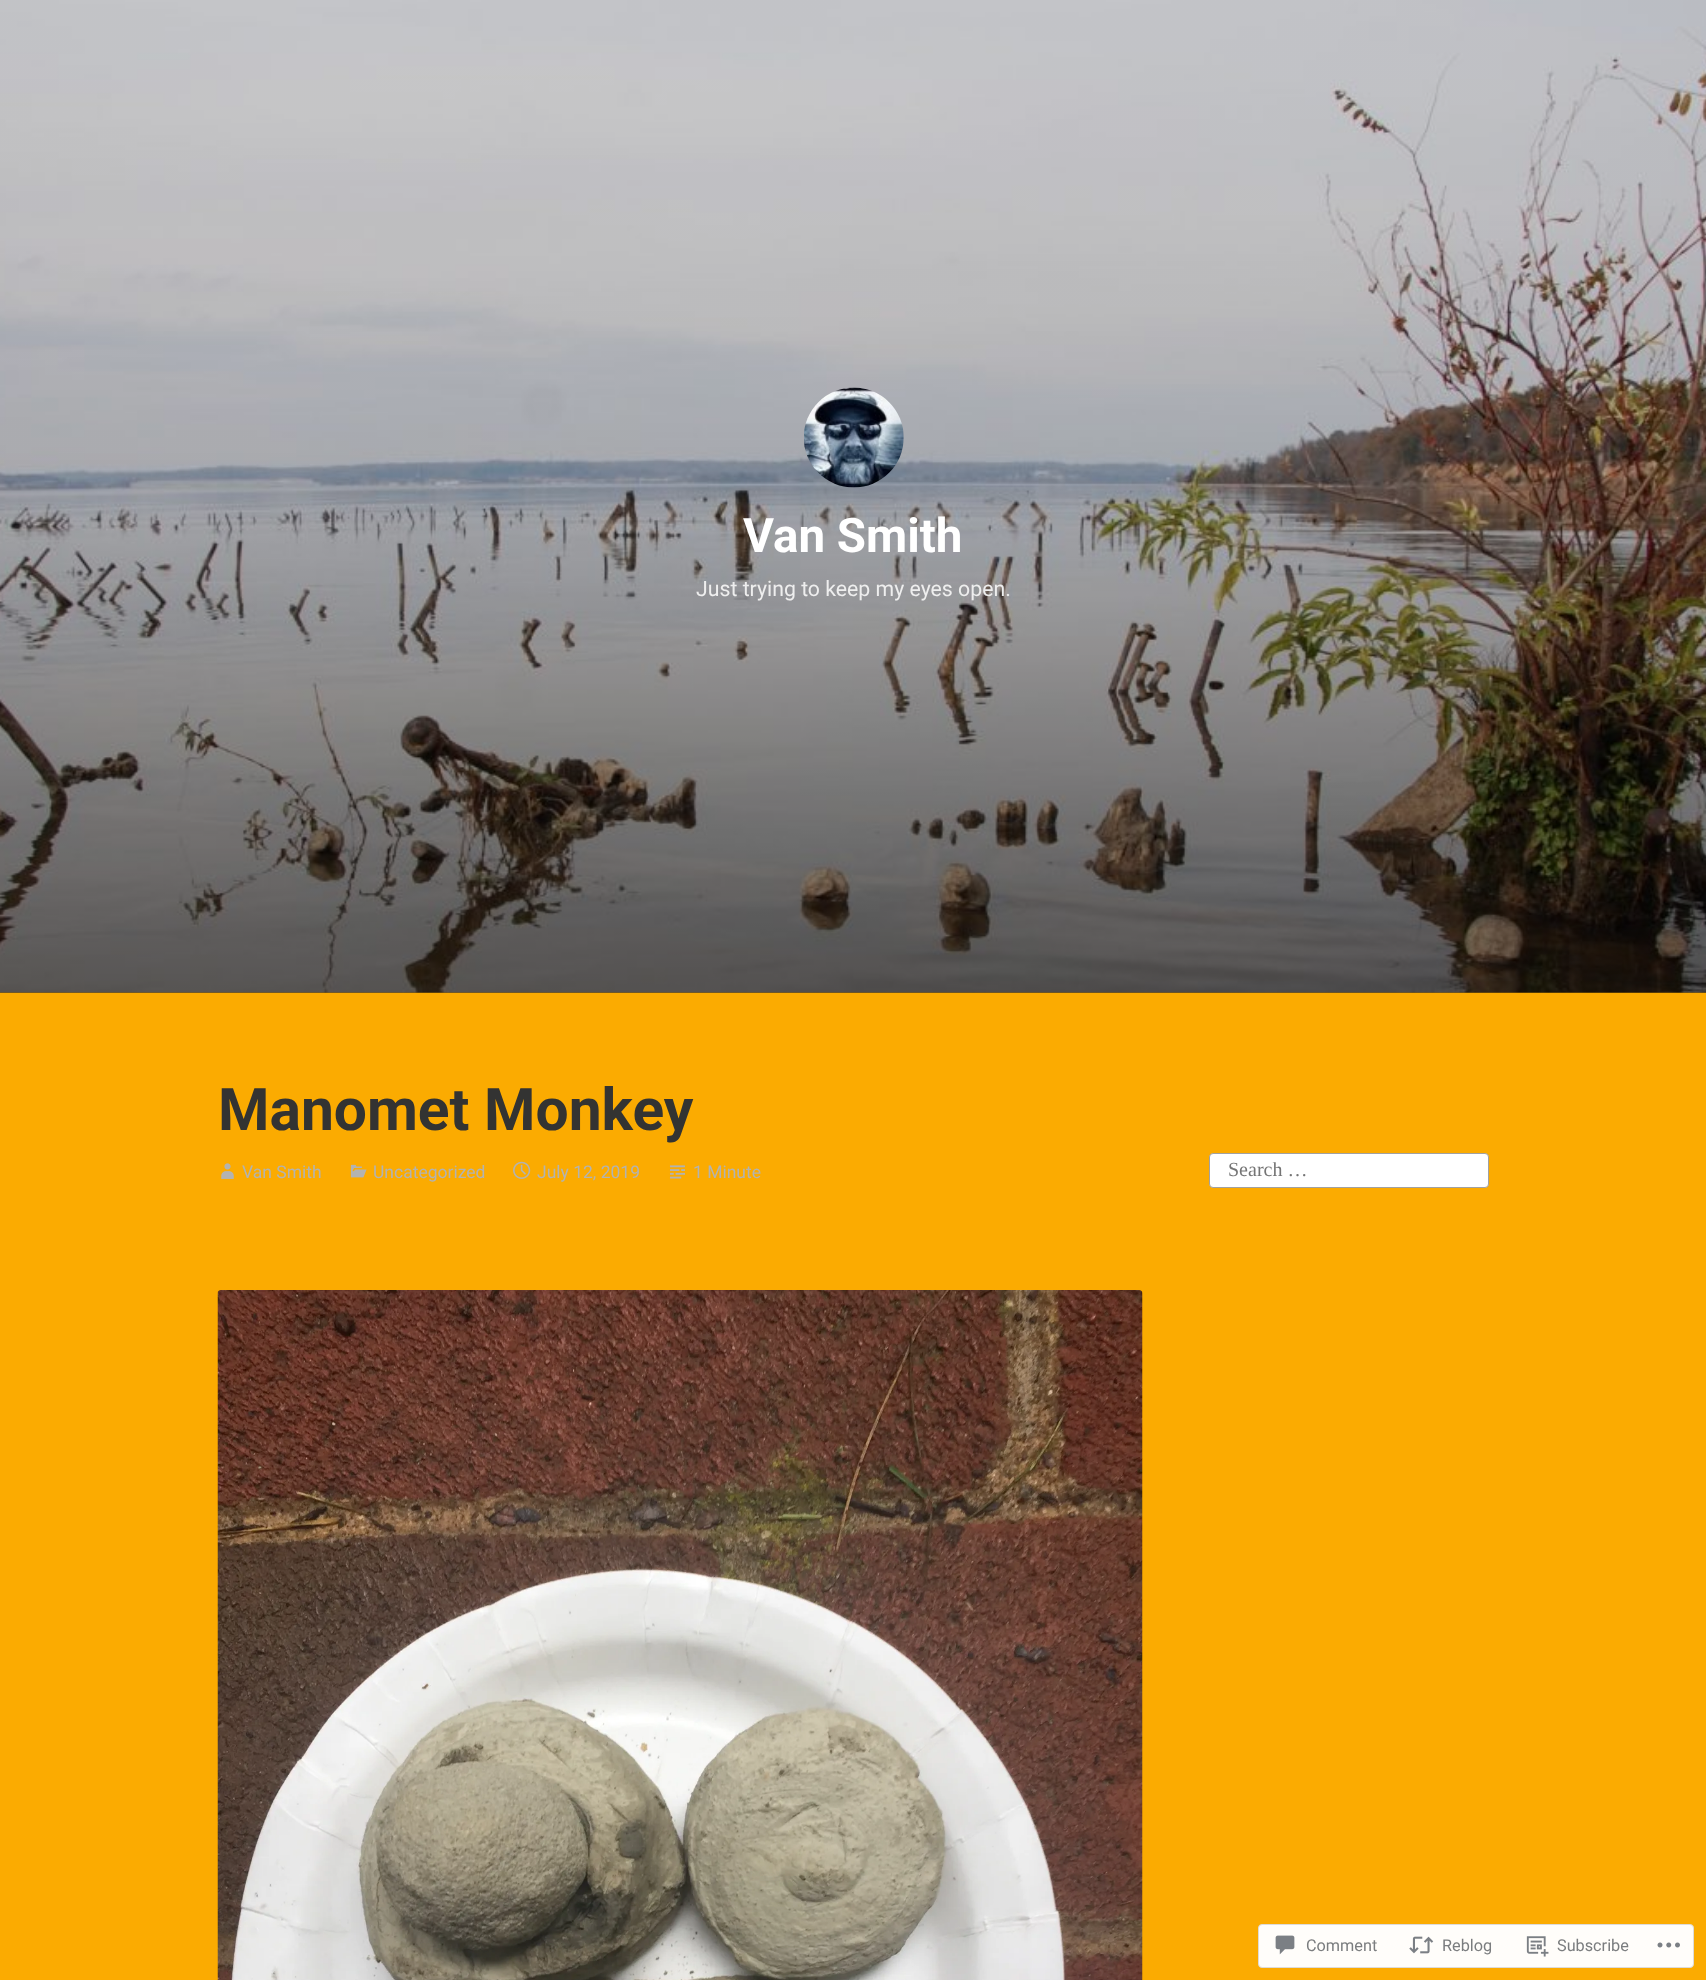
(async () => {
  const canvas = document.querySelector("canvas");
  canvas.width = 1706;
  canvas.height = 1980;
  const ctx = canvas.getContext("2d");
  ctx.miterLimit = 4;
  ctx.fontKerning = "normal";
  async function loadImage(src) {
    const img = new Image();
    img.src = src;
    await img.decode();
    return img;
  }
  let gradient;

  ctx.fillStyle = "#fbab01";
  ctx.fillRect(0, 0, 1706, 1980);
  ctx.drawImage(await loadImage("img/1.png"), 0, 0, 1706, 993);
  gradient = ctx.createLinearGradient(853, 0, 853, 993);
  gradient.addColorStop(0.5, "rgba(0, 0, 0, 0.15)");
  gradient.addColorStop(1, "rgba(0, 0, 0, 0.45)");
  ctx.fillStyle = gradient;
  ctx.fillRect(0, 0, 1706, 993);
  ctx.drawImage(await loadImage("img/2.png"), 804, 387, 100, 101);
  ctx.drawImage(await loadImage("img/3.png"), 221, 1163, 13, 16);
  ctx.drawImage(await loadImage("img/4.png"), 350, 1164, 17, 14);
  ctx.drawImage(await loadImage("img/5.png"), 513, 1161, 18, 18);
  ctx.drawImage(await loadImage("img/6.png"), 669, 1165, 16, 14);
  ctx.drawImage(await loadImage("img/7.png"), 217, 1290, 926, 690);
  ctx.fillStyle = "#ffffff";
  ctx.beginPath();
  ctx.roundRect(1209.5, 1153.5, 279, 34, 3.5);
  ctx.fill();
  ctx.strokeStyle = "#a1a1a1";
  ctx.stroke();
  ctx.fillStyle = "#fffdfa";
  ctx.beginPath();
  ctx.roundRect(1258.5, 1924.5, 435, 43, 3.5);
  ctx.fill();
  ctx.strokeStyle = "#dddbda";
  ctx.stroke();
  ctx.drawImage(await loadImage("img/8.png"), 1275, 1935, 20, 20);
  ctx.drawImage(await loadImage("img/9.png"), 1409, 1936, 25, 18);
  ctx.drawImage(await loadImage("img/10.png"), 1526, 1936, 23, 21);
  ctx.drawImage(await loadImage("img/11.png"), 1657, 1942, 23, 6);
  ctx.font = "bold 47.5px Roboto";
  ctx.fillStyle = "#ffffff";
  ctx.fillText("Van Smith", 743, 552);
  ctx.font = "21.25px Roboto";
  ctx.fillStyle = "#eeeeee";
  ctx.fillText("Just trying to keep my eyes open.", 696, 596);
  ctx.font = "bold 58.75px Roboto";
  ctx.fillStyle = "#333332";
  ctx.fillText("Manomet Monkey", 218, 1130);
  ctx.font = "17.5px Roboto";
  ctx.fillStyle = "#b3b3b1";
  for (const [text, x, y] of [
    ["Van Smith", 242, 1178],
    ["Uncategorized", 373, 1178],
    ["July 12, 2019", 537, 1178],
    ["1 Minute", 693, 1178],
  ]) {
    ctx.fillText(text, x, y);
  }
  ctx.font = "20px Liberation Serif";
  ctx.fillStyle = "#757575";
  ctx.fillText("Search …", 1228, 1176);
  ctx.font = "16.25px Roboto";
  ctx.fillStyle = "#7b7d7f";
  for (const [text, x, y] of [
    ["Comment", 1306, 1951],
    ["Reblog", 1442, 1951],
    ["Subscribe", 1557, 1951],
  ]) {
    ctx.fillText(text, x, y);
  }
})();
